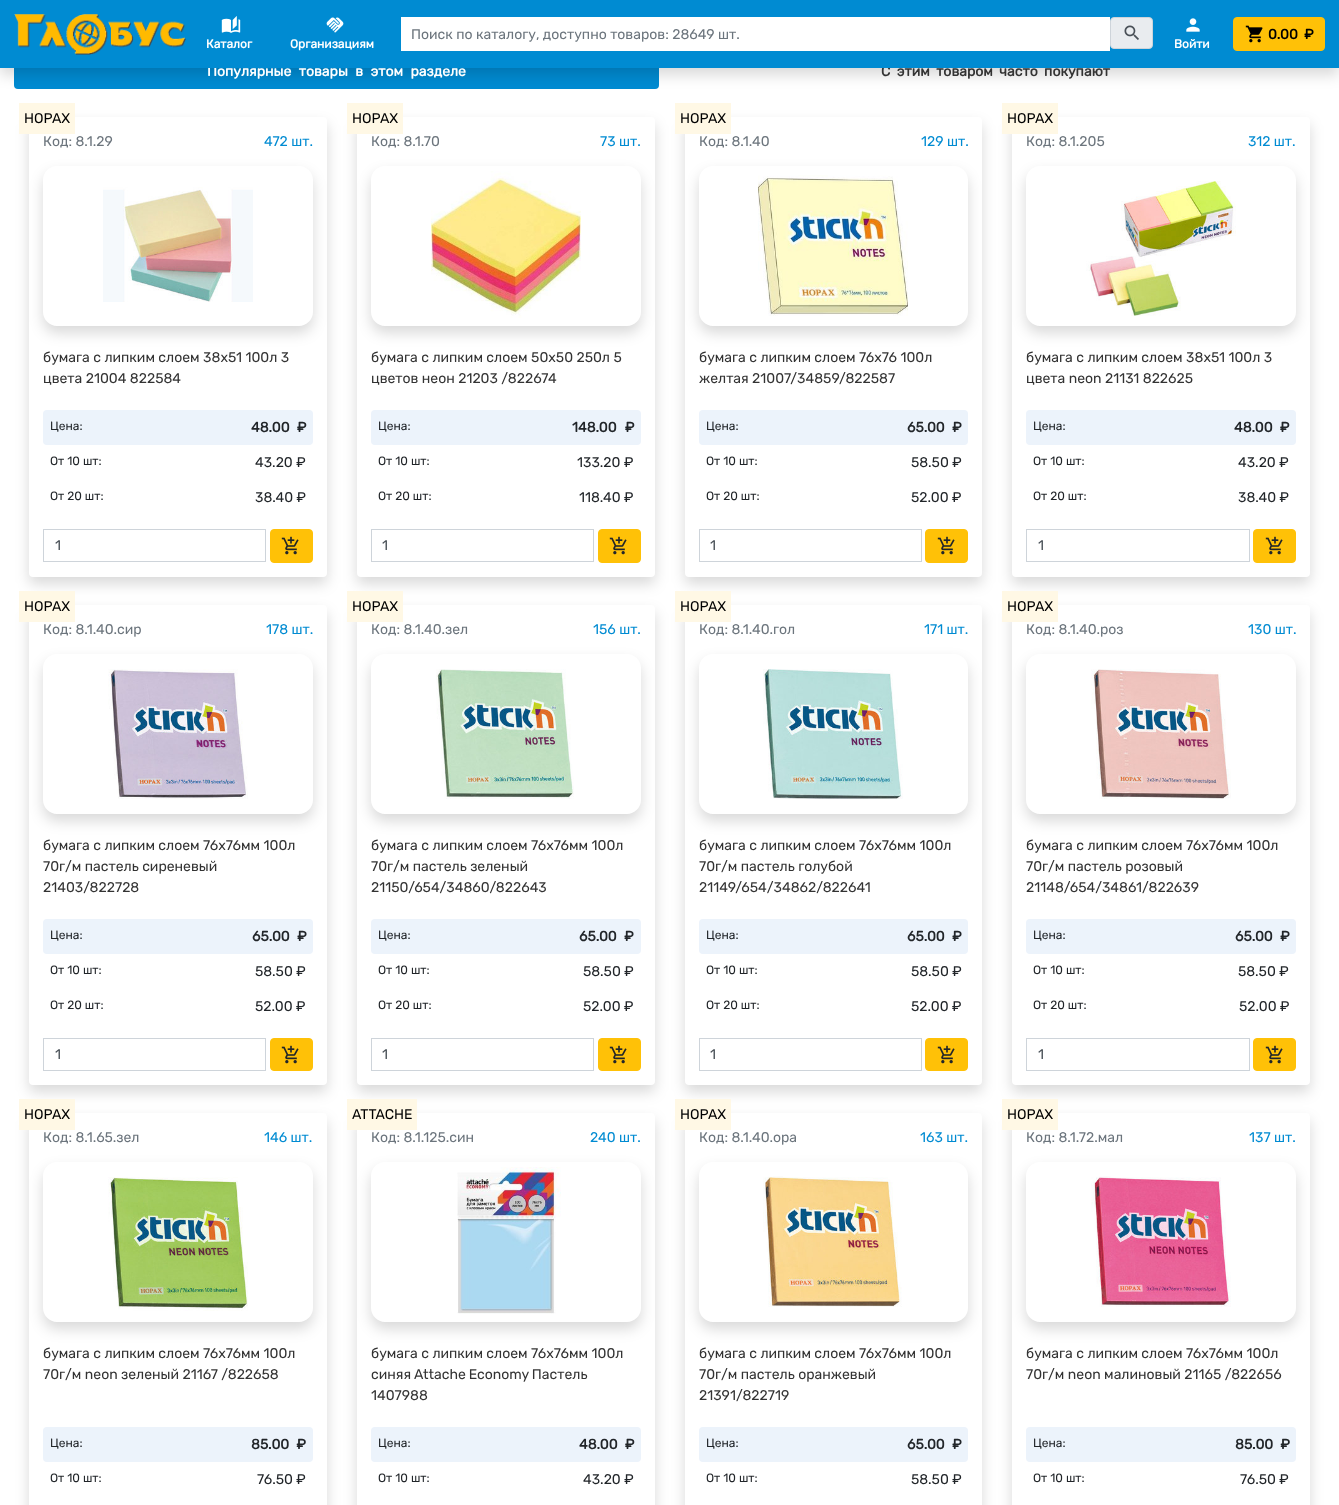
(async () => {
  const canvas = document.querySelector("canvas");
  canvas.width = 1339;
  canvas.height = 1505;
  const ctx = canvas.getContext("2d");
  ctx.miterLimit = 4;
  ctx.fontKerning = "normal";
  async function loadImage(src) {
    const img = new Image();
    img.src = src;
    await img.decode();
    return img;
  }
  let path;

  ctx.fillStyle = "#ffffff";
  ctx.fillRect(0, 0, 1339, 1505);
  ctx.fillStyle = "#008bd2";
  ctx.beginPath();
  ctx.roundRect(14, 54, 645, 35, 4);
  ctx.fill();
  ctx.fillStyle = "rgba(0, 0, 0, 0.15)";
  ctx.filter = "blur(7px)";
  ctx.beginPath();
  ctx.rect(0, 7, 1339, 68);
  ctx.fill();
  ctx.filter = "none";
  ctx.filter = "blur(7px)";
  ctx.beginPath();
  ctx.roundRect(29, 124, 298, 460, 4);
  ctx.fill();
  ctx.filter = "none";
  ctx.fillStyle = "#ffffff";
  ctx.beginPath();
  ctx.roundRect(29, 117, 298, 460, 4);
  ctx.fill();
  ctx.fillStyle = "#fff8e5";
  ctx.fillRect(19, 103, 56, 31);
  ctx.save();
  path = new Path2D("M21 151H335V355H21ZM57 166H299C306.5 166 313 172.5 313 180V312C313 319.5 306.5 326 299 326H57C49.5 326 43 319.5 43 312V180C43 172.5 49.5 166 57 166Z");
  ctx.clip(path, "evenodd");
  ctx.fillStyle = "rgba(0, 0, 0, 0.15)";
  ctx.filter = "blur(7px)";
  ctx.beginPath();
  ctx.roundRect(43, 173, 270, 160, 14);
  ctx.fill();
  ctx.filter = "none";
  ctx.restore();
  ctx.drawImage(await loadImage("img/7.png"), 103, 187, 150, 115);
  ctx.fillStyle = "#ecf3fb";
  ctx.beginPath();
  ctx.roundRect(43, 410, 270, 35, 4);
  ctx.fill();
  ctx.strokeStyle = "#ced4da";
  ctx.strokeRect(43.5, 529.5, 222, 32);
  ctx.fillStyle = "#ffc107";
  ctx.beginPath();
  ctx.roundRect(270.5, 529.5, 42, 33, 3.5);
  ctx.fill();
  ctx.strokeStyle = "#ffc107";
  ctx.stroke();
  ctx.drawImage(await loadImage("img/8.png"), 281, 536, 18, 19);
  ctx.fillStyle = "rgba(0, 0, 0, 0.15)";
  ctx.filter = "blur(7px)";
  ctx.beginPath();
  ctx.roundRect(357, 124, 298, 460, 4);
  ctx.fill();
  ctx.filter = "none";
  ctx.fillStyle = "#ffffff";
  ctx.beginPath();
  ctx.roundRect(357, 117, 298, 460, 4);
  ctx.fill();
  ctx.fillStyle = "#fff8e5";
  ctx.fillRect(347, 103, 56, 31);
  ctx.save();
  path = new Path2D("M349 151H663V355H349ZM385 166H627C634.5 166 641 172.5 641 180V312C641 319.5 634.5 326 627 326H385C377.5 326 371 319.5 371 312V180C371 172.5 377.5 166 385 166Z");
  ctx.clip(path, "evenodd");
  ctx.fillStyle = "rgba(0, 0, 0, 0.15)";
  ctx.filter = "blur(7px)";
  ctx.beginPath();
  ctx.roundRect(371, 173, 270, 160, 14);
  ctx.fill();
  ctx.filter = "none";
  ctx.restore();
  ctx.drawImage(await loadImage("img/9.png"), 431, 171, 150, 147);
  ctx.fillStyle = "#ecf3fb";
  ctx.beginPath();
  ctx.roundRect(371, 410, 270, 35, 4);
  ctx.fill();
  ctx.strokeStyle = "#ced4da";
  ctx.strokeRect(371.5, 529.5, 222, 32);
  ctx.fillStyle = "#ffc107";
  ctx.beginPath();
  ctx.roundRect(598.5, 529.5, 42, 33, 3.5);
  ctx.fill();
  ctx.strokeStyle = "#ffc107";
  ctx.stroke();
  ctx.drawImage(await loadImage("img/8.png"), 609, 536, 18, 19);
  ctx.fillStyle = "rgba(0, 0, 0, 0.15)";
  ctx.filter = "blur(7px)";
  ctx.beginPath();
  ctx.roundRect(685, 124, 297, 460, 4);
  ctx.fill();
  ctx.filter = "none";
  ctx.fillStyle = "#ffffff";
  ctx.beginPath();
  ctx.roundRect(685, 117, 297, 460, 4);
  ctx.fill();
  ctx.fillStyle = "#fff8e5";
  ctx.fillRect(675, 103, 56, 31);
  ctx.save();
  path = new Path2D("M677 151H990V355H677ZM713 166H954C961.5 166 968 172.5 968 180V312C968 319.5 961.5 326 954 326H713C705.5 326 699 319.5 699 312V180C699 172.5 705.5 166 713 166Z");
  ctx.clip(path, "evenodd");
  ctx.fillStyle = "rgba(0, 0, 0, 0.15)";
  ctx.filter = "blur(7px)";
  ctx.beginPath();
  ctx.roundRect(699, 173, 269, 160, 14);
  ctx.fill();
  ctx.filter = "none";
  ctx.restore();
  ctx.drawImage(await loadImage("img/10.png"), 758, 175, 150, 141);
  ctx.fillStyle = "#ecf3fb";
  ctx.beginPath();
  ctx.roundRect(699, 410, 269, 35, 4);
  ctx.fill();
  ctx.strokeStyle = "#ced4da";
  ctx.strokeRect(699.5, 529.5, 222, 32);
  ctx.fillStyle = "#ffc107";
  ctx.beginPath();
  ctx.roundRect(925.5, 529.5, 42, 33, 3.5);
  ctx.fill();
  ctx.strokeStyle = "#ffc107";
  ctx.stroke();
  ctx.drawImage(await loadImage("img/8.png"), 937, 536, 18, 19);
  ctx.fillStyle = "rgba(0, 0, 0, 0.15)";
  ctx.filter = "blur(7px)";
  ctx.beginPath();
  ctx.roundRect(1012, 124, 298, 460, 4);
  ctx.fill();
  ctx.filter = "none";
  ctx.fillStyle = "#ffffff";
  ctx.beginPath();
  ctx.roundRect(1012, 117, 298, 460, 4);
  ctx.fill();
  ctx.fillStyle = "#fff8e5";
  ctx.fillRect(1002, 103, 56, 31);
  ctx.save();
  path = new Path2D("M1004 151H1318V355H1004ZM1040 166H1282C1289.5 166 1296 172.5 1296 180V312C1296 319.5 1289.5 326 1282 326H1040C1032.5 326 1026 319.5 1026 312V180C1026 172.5 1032.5 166 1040 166Z");
  ctx.clip(path, "evenodd");
  ctx.fillStyle = "rgba(0, 0, 0, 0.15)";
  ctx.filter = "blur(7px)";
  ctx.beginPath();
  ctx.roundRect(1026, 173, 270, 160, 14);
  ctx.fill();
  ctx.filter = "none";
  ctx.restore();
  ctx.drawImage(await loadImage("img/11.png"), 1086, 181, 150, 135);
  ctx.fillStyle = "#ecf3fb";
  ctx.beginPath();
  ctx.roundRect(1026, 410, 270, 35, 4);
  ctx.fill();
  ctx.strokeStyle = "#ced4da";
  ctx.strokeRect(1026.5, 529.5, 223, 32);
  ctx.fillStyle = "#ffc107";
  ctx.beginPath();
  ctx.roundRect(1253.5, 529.5, 42, 33, 3.5);
  ctx.fill();
  ctx.strokeStyle = "#ffc107";
  ctx.stroke();
  ctx.drawImage(await loadImage("img/8.png"), 1265, 536, 18, 19);
  ctx.fillStyle = "rgba(0, 0, 0, 0.15)";
  ctx.filter = "blur(7px)";
  ctx.beginPath();
  ctx.roundRect(29, 612, 298, 480, 4);
  ctx.fill();
  ctx.filter = "none";
  ctx.fillStyle = "#ffffff";
  ctx.beginPath();
  ctx.roundRect(29, 605, 298, 480, 4);
  ctx.fill();
  ctx.fillStyle = "#fff8e5";
  ctx.fillRect(19, 591, 56, 31);
  ctx.save();
  path = new Path2D("M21 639H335V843H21ZM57 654H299C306.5 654 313 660.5 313 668V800C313 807.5 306.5 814 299 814H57C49.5 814 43 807.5 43 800V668C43 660.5 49.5 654 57 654Z");
  ctx.clip(path, "evenodd");
  ctx.fillStyle = "rgba(0, 0, 0, 0.15)";
  ctx.filter = "blur(7px)";
  ctx.beginPath();
  ctx.roundRect(43, 661, 270, 160, 14);
  ctx.fill();
  ctx.filter = "none";
  ctx.restore();
  ctx.drawImage(await loadImage("img/12.png"), 108, 669, 140, 130);
  ctx.fillStyle = "#ecf3fb";
  ctx.beginPath();
  ctx.roundRect(43, 919, 270, 35, 4);
  ctx.fill();
  ctx.strokeStyle = "#ced4da";
  ctx.strokeRect(43.5, 1038.5, 222, 32);
  ctx.fillStyle = "#ffc107";
  ctx.beginPath();
  ctx.roundRect(270.5, 1038.5, 42, 32, 3.5);
  ctx.fill();
  ctx.strokeStyle = "#ffc107";
  ctx.stroke();
  ctx.drawImage(await loadImage("img/8.png"), 281, 1045, 18, 19);
  ctx.fillStyle = "rgba(0, 0, 0, 0.15)";
  ctx.filter = "blur(7px)";
  ctx.beginPath();
  ctx.roundRect(357, 612, 298, 480, 4);
  ctx.fill();
  ctx.filter = "none";
  ctx.fillStyle = "#ffffff";
  ctx.beginPath();
  ctx.roundRect(357, 605, 298, 480, 4);
  ctx.fill();
  ctx.fillStyle = "#fff8e5";
  ctx.fillRect(347, 591, 56, 31);
  ctx.save();
  path = new Path2D("M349 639H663V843H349ZM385 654H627C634.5 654 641 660.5 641 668V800C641 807.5 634.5 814 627 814H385C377.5 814 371 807.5 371 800V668C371 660.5 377.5 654 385 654Z");
  ctx.clip(path, "evenodd");
  ctx.fillStyle = "rgba(0, 0, 0, 0.15)";
  ctx.filter = "blur(7px)";
  ctx.beginPath();
  ctx.roundRect(371, 661, 270, 160, 14);
  ctx.fill();
  ctx.filter = "none";
  ctx.restore();
  ctx.drawImage(await loadImage("img/13.png"), 436, 669, 138, 130);
  ctx.fillStyle = "#ecf3fb";
  ctx.beginPath();
  ctx.roundRect(371, 919, 270, 35, 4);
  ctx.fill();
  ctx.strokeStyle = "#ced4da";
  ctx.strokeRect(371.5, 1038.5, 222, 32);
  ctx.fillStyle = "#ffc107";
  ctx.beginPath();
  ctx.roundRect(598.5, 1038.5, 42, 32, 3.5);
  ctx.fill();
  ctx.strokeStyle = "#ffc107";
  ctx.stroke();
  ctx.drawImage(await loadImage("img/8.png"), 609, 1045, 18, 19);
  ctx.fillStyle = "rgba(0, 0, 0, 0.15)";
  ctx.filter = "blur(7px)";
  ctx.beginPath();
  ctx.roundRect(685, 612, 297, 480, 4);
  ctx.fill();
  ctx.filter = "none";
  ctx.fillStyle = "#ffffff";
  ctx.beginPath();
  ctx.roundRect(685, 605, 297, 480, 4);
  ctx.fill();
  ctx.fillStyle = "#fff8e5";
  ctx.fillRect(675, 591, 56, 31);
  ctx.save();
  path = new Path2D("M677 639H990V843H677ZM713 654H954C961.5 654 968 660.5 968 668V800C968 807.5 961.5 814 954 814H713C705.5 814 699 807.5 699 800V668C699 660.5 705.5 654 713 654Z");
  ctx.clip(path, "evenodd");
  ctx.fillStyle = "rgba(0, 0, 0, 0.15)";
  ctx.filter = "blur(7px)";
  ctx.beginPath();
  ctx.roundRect(699, 661, 269, 160, 14);
  ctx.fill();
  ctx.filter = "none";
  ctx.restore();
  ctx.drawImage(await loadImage("img/14.png"), 763, 669, 140, 130);
  ctx.fillStyle = "#ecf3fb";
  ctx.beginPath();
  ctx.roundRect(699, 919, 269, 35, 4);
  ctx.fill();
  ctx.strokeStyle = "#ced4da";
  ctx.strokeRect(699.5, 1038.5, 222, 32);
  ctx.fillStyle = "#ffc107";
  ctx.beginPath();
  ctx.roundRect(925.5, 1038.5, 42, 32, 3.5);
  ctx.fill();
  ctx.strokeStyle = "#ffc107";
  ctx.stroke();
  ctx.drawImage(await loadImage("img/8.png"), 937, 1045, 18, 19);
  ctx.fillStyle = "rgba(0, 0, 0, 0.15)";
  ctx.filter = "blur(7px)";
  ctx.beginPath();
  ctx.roundRect(1012, 612, 298, 480, 4);
  ctx.fill();
  ctx.filter = "none";
  ctx.fillStyle = "#ffffff";
  ctx.beginPath();
  ctx.roundRect(1012, 605, 298, 480, 4);
  ctx.fill();
  ctx.fillStyle = "#fff8e5";
  ctx.fillRect(1002, 591, 56, 31);
  ctx.save();
  path = new Path2D("M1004 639H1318V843H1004ZM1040 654H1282C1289.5 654 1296 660.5 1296 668V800C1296 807.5 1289.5 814 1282 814H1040C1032.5 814 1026 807.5 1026 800V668C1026 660.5 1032.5 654 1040 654Z");
  ctx.clip(path, "evenodd");
  ctx.fillStyle = "rgba(0, 0, 0, 0.15)";
  ctx.filter = "blur(7px)";
  ctx.beginPath();
  ctx.roundRect(1026, 661, 270, 160, 14);
  ctx.fill();
  ctx.filter = "none";
  ctx.restore();
  ctx.drawImage(await loadImage("img/15.png"), 1091, 669, 140, 130);
  ctx.fillStyle = "#ecf3fb";
  ctx.beginPath();
  ctx.roundRect(1026, 919, 270, 35, 4);
  ctx.fill();
  ctx.strokeStyle = "#ced4da";
  ctx.strokeRect(1026.5, 1038.5, 223, 32);
  ctx.fillStyle = "#ffc107";
  ctx.beginPath();
  ctx.roundRect(1253.5, 1038.5, 42, 32, 3.5);
  ctx.fill();
  ctx.strokeStyle = "#ffc107";
  ctx.stroke();
  ctx.drawImage(await loadImage("img/8.png"), 1265, 1045, 18, 19);
  ctx.save();
  path = new Path2D("M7 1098H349V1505H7ZM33 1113H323C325 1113 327 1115 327 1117V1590C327 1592 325 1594 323 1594H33C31 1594 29 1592 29 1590V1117C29 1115 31 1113 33 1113Z");
  ctx.clip(path, "evenodd");
  ctx.fillStyle = "rgba(0, 0, 0, 0.15)";
  ctx.filter = "blur(7px)";
  ctx.beginPath();
  ctx.roundRect(29, 1120, 298, 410, 4);
  ctx.fill();
  ctx.filter = "none";
  ctx.restore();
  ctx.fillStyle = "#fff8e5";
  ctx.fillRect(19, 1099, 56, 31);
  ctx.save();
  path = new Path2D("M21 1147H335V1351H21ZM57 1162H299C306.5 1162 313 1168.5 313 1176V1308C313 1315.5 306.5 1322 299 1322H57C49.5 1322 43 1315.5 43 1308V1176C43 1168.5 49.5 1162 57 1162Z");
  ctx.clip(path, "evenodd");
  ctx.fillStyle = "rgba(0, 0, 0, 0.15)";
  ctx.filter = "blur(7px)";
  ctx.beginPath();
  ctx.roundRect(43, 1169, 270, 160, 14);
  ctx.fill();
  ctx.filter = "none";
  ctx.restore();
  ctx.drawImage(await loadImage("img/16.png"), 108, 1177, 140, 134);
  ctx.fillStyle = "#ecf3fb";
  ctx.beginPath();
  ctx.roundRect(43, 1427, 270, 35, 4);
  ctx.fill();
  ctx.save();
  path = new Path2D("M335 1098H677V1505H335ZM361 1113H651C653 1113 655 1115 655 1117V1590C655 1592 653 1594 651 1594H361C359 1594 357 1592 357 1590V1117C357 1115 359 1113 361 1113Z");
  ctx.clip(path, "evenodd");
  ctx.fillStyle = "rgba(0, 0, 0, 0.15)";
  ctx.filter = "blur(7px)";
  ctx.beginPath();
  ctx.roundRect(357, 1120, 298, 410, 4);
  ctx.fill();
  ctx.filter = "none";
  ctx.restore();
  ctx.fillStyle = "#fff8e5";
  ctx.fillRect(347, 1099, 70, 31);
  ctx.save();
  path = new Path2D("M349 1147H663V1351H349ZM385 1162H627C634.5 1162 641 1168.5 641 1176V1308C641 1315.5 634.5 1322 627 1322H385C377.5 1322 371 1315.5 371 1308V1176C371 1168.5 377.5 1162 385 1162Z");
  ctx.clip(path, "evenodd");
  ctx.fillStyle = "rgba(0, 0, 0, 0.15)";
  ctx.filter = "blur(7px)";
  ctx.beginPath();
  ctx.roundRect(371, 1169, 270, 160, 14);
  ctx.fill();
  ctx.filter = "none";
  ctx.restore();
  ctx.drawImage(await loadImage("img/17.png"), 457, 1167, 104, 147);
  ctx.fillStyle = "#ecf3fb";
  ctx.beginPath();
  ctx.roundRect(371, 1427, 270, 35, 4);
  ctx.fill();
  ctx.save();
  path = new Path2D("M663 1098H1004V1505H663ZM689 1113H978C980 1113 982 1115 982 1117V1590C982 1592 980 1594 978 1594H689C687 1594 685 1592 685 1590V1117C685 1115 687 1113 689 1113Z");
  ctx.clip(path, "evenodd");
  ctx.fillStyle = "rgba(0, 0, 0, 0.15)";
  ctx.filter = "blur(7px)";
  ctx.beginPath();
  ctx.roundRect(685, 1120, 297, 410, 4);
  ctx.fill();
  ctx.filter = "none";
  ctx.restore();
  ctx.fillStyle = "#fff8e5";
  ctx.fillRect(675, 1099, 56, 31);
  ctx.save();
  path = new Path2D("M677 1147H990V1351H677ZM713 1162H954C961.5 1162 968 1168.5 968 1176V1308C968 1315.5 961.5 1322 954 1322H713C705.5 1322 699 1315.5 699 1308V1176C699 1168.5 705.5 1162 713 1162Z");
  ctx.clip(path, "evenodd");
  ctx.fillStyle = "rgba(0, 0, 0, 0.15)";
  ctx.filter = "blur(7px)";
  ctx.beginPath();
  ctx.roundRect(699, 1169, 269, 160, 14);
  ctx.fill();
  ctx.filter = "none";
  ctx.restore();
  ctx.drawImage(await loadImage("img/18.png"), 763, 1176, 139, 131);
  ctx.fillStyle = "#ecf3fb";
  ctx.beginPath();
  ctx.roundRect(699, 1427, 269, 35, 4);
  ctx.fill();
  ctx.save();
  path = new Path2D("M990 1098H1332V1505H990ZM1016 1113H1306C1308 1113 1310 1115 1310 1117V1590C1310 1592 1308 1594 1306 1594H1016C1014 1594 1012 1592 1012 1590V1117C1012 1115 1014 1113 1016 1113Z");
  ctx.clip(path, "evenodd");
  ctx.fillStyle = "rgba(0, 0, 0, 0.15)";
  ctx.filter = "blur(7px)";
  ctx.beginPath();
  ctx.roundRect(1012, 1120, 298, 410, 4);
  ctx.fill();
  ctx.filter = "none";
  ctx.restore();
  ctx.fillStyle = "#fff8e5";
  ctx.fillRect(1002, 1099, 56, 31);
  ctx.save();
  path = new Path2D("M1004 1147H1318V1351H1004ZM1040 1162H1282C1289.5 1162 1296 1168.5 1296 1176V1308C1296 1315.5 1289.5 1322 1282 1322H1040C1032.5 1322 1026 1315.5 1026 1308V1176C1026 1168.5 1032.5 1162 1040 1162Z");
  ctx.clip(path, "evenodd");
  ctx.fillStyle = "rgba(0, 0, 0, 0.15)";
  ctx.filter = "blur(7px)";
  ctx.beginPath();
  ctx.roundRect(1026, 1169, 270, 160, 14);
  ctx.fill();
  ctx.filter = "none";
  ctx.restore();
  ctx.drawImage(await loadImage("img/19.png"), 1091, 1176, 140, 131);
  ctx.fillStyle = "#ecf3fb";
  ctx.beginPath();
  ctx.roundRect(1026, 1427, 270, 35, 4);
  ctx.fill();
  ctx.wordSpacing = "4px";
  ctx.font = "bold 14px Rubik";
  ctx.fillStyle = "#ffffff";
  ctx.fillText("Популярные товары в этом разделе", 207, 76);
  ctx.wordSpacing = "3px";
  ctx.fillStyle = "#333333";
  ctx.fillText("С этим товаром часто покупают", 881, 76);
  ctx.fillStyle = "#008bd2";
  ctx.fillRect(0, 0, 1339, 68);
  ctx.fillStyle = "#ffffff";
  ctx.fillRect(401, 17, 709, 34);
  ctx.wordSpacing = "0px";
  ctx.font = "14px Rubik";
  ctx.fillStyle = "#6c757d";
  ctx.fillText("Поиск по каталогу, доступно товаров: 28649 шт.", 411, 39);
  ctx.fillStyle = "#e9ecef";
  ctx.beginPath();
  ctx.roundRect(1110.5, 17.5, 42, 31, 3.5);
  ctx.fill();
  ctx.strokeStyle = "#ced4da";
  ctx.stroke();
  ctx.drawImage(await loadImage("img/2.png"), 1124, 25, 15, 15);
  ctx.drawImage(await loadImage("img/1.png"), 14, 14, 172, 41);
  ctx.fillStyle = "#ffc107";
  ctx.beginPath();
  ctx.roundRect(1233.5, 17.5, 91, 33, 3.5);
  ctx.fill();
  ctx.strokeStyle = "#ffc107";
  ctx.stroke();
  ctx.wordSpacing = "3px";
  ctx.font = "bold 14px Rubik";
  ctx.fillStyle = "#000000";
  ctx.fillText("0.00 ₽", 1268, 39);
  ctx.drawImage(await loadImage("img/3.png"), 1245, 25, 18, 18);
  ctx.wordSpacing = "0px";
  ctx.font = "bold 12px Rubik";
  ctx.fillStyle = "#ffffff";
  ctx.fillText("Войти", 1174, 48);
  ctx.drawImage(await loadImage("img/6.png"), 1186, 18, 14, 14);
  ctx.fillText("Организациям", 290, 48);
  ctx.drawImage(await loadImage("img/5.png"), 326, 17, 18, 16);
  ctx.fillText("Каталог", 206, 48);
  ctx.drawImage(await loadImage("img/4.png"), 221, 16, 20, 17);
  ctx.font = "14px Rubik";
  ctx.fillStyle = "#000000";
  ctx.fillText("HOPAX", 24, 123);
  ctx.fillStyle = "#6c757d";
  ctx.fillText("Код: 8.1.29", 43, 146);
  ctx.fillStyle = "#008bd2";
  ctx.fillText("472 шт.", 264, 146);
  ctx.fillStyle = "#333333";
  ctx.fillText("бумага с липким слоем 38х51 100л 3", 43, 362);
  ctx.fillText("цвета 21004 822584", 43, 383);
  ctx.font = "12px Rubik";
  ctx.fillStyle = "#212529";
  ctx.fillText("Цена:", 50, 430);
  ctx.wordSpacing = "4px";
  ctx.font = "bold 14px Rubik";
  ctx.fillText("48.00 ₽", 251, 432);
  ctx.wordSpacing = "0px";
  ctx.font = "12px Rubik";
  ctx.fillText("От 10 шт:", 50, 465);
  ctx.font = "14px Rubik";
  ctx.fillText("43.20 ₽", 255, 467);
  ctx.font = "12px Rubik";
  ctx.fillText("От 20 шт:", 50, 500);
  ctx.font = "14px Rubik";
  ctx.fillText("38.40 ₽", 255, 502);
  ctx.fillStyle = "#495057";
  ctx.fillText("1", 55, 550);
  ctx.fillStyle = "#000000";
  ctx.fillText("HOPAX", 352, 123);
  ctx.fillStyle = "#6c757d";
  ctx.fillText("Код: 8.1.70", 371, 146);
  ctx.fillStyle = "#008bd2";
  ctx.fillText("73 шт.", 600, 146);
  ctx.fillStyle = "#333333";
  ctx.fillText("бумага с липким слоем 50х50 250л 5", 371, 362);
  ctx.fillText("цветов неон 21203 /822674", 371, 383);
  ctx.font = "12px Rubik";
  ctx.fillStyle = "#212529";
  ctx.fillText("Цена:", 378, 430);
  ctx.wordSpacing = "5px";
  ctx.font = "bold 14px Rubik";
  ctx.fillText("148.00 ₽", 572, 432);
  ctx.wordSpacing = "0px";
  ctx.font = "12px Rubik";
  ctx.fillText("От 10 шт:", 378, 465);
  ctx.font = "14px Rubik";
  ctx.fillText("133.20 ₽", 577, 467);
  ctx.font = "12px Rubik";
  ctx.fillText("От 20 шт:", 378, 500);
  ctx.font = "14px Rubik";
  ctx.fillText("118.40 ₽", 579, 502);
  ctx.fillStyle = "#495057";
  ctx.fillText("1", 382, 550);
  ctx.fillStyle = "#000000";
  ctx.fillText("HOPAX", 680, 123);
  ctx.fillStyle = "#6c757d";
  ctx.fillText("Код: 8.1.40", 699, 146);
  ctx.fillStyle = "#008bd2";
  ctx.fillText("129 шт.", 921, 146);
  ctx.fillStyle = "#333333";
  ctx.fillText("бумага с липким слоем 76х76 100л", 699, 362);
  ctx.fillText("желтая 21007/34859/822587", 699, 383);
  ctx.font = "12px Rubik";
  ctx.fillStyle = "#212529";
  ctx.fillText("Цена:", 706, 430);
  ctx.wordSpacing = "4px";
  ctx.font = "bold 14px Rubik";
  ctx.fillText("65.00 ₽", 907, 432);
  ctx.wordSpacing = "0px";
  ctx.font = "12px Rubik";
  ctx.fillText("От 10 шт:", 706, 465);
  ctx.font = "14px Rubik";
  ctx.fillText("58.50 ₽", 911, 467);
  ctx.font = "12px Rubik";
  ctx.fillText("От 20 шт:", 706, 500);
  ctx.font = "14px Rubik";
  ctx.fillText("52.00 ₽", 911, 502);
  ctx.fillStyle = "#495057";
  ctx.fillText("1", 710, 550);
  ctx.fillStyle = "#000000";
  ctx.fillText("HOPAX", 1007, 123);
  ctx.fillStyle = "#6c757d";
  ctx.fillText("Код: 8.1.205", 1026, 146);
  ctx.fillStyle = "#008bd2";
  ctx.fillText("312 шт.", 1248, 146);
  ctx.fillStyle = "#333333";
  ctx.fillText("бумага с липким слоем 38х51 100л 3", 1026, 362);
  ctx.fillText("цвета neon 21131 822625", 1026, 383);
  ctx.font = "12px Rubik";
  ctx.fillStyle = "#212529";
  ctx.fillText("Цена:", 1033, 430);
  ctx.wordSpacing = "4px";
  ctx.font = "bold 14px Rubik";
  ctx.fillText("48.00 ₽", 1234, 432);
  ctx.wordSpacing = "0px";
  ctx.font = "12px Rubik";
  ctx.fillText("От 10 шт:", 1033, 465);
  ctx.font = "14px Rubik";
  ctx.fillText("43.20 ₽", 1238, 467);
  ctx.font = "12px Rubik";
  ctx.fillText("От 20 шт:", 1033, 500);
  ctx.font = "14px Rubik";
  ctx.fillText("38.40 ₽", 1238, 502);
  ctx.fillStyle = "#495057";
  ctx.fillText("1", 1038, 550);
  ctx.fillStyle = "#000000";
  ctx.fillText("HOPAX", 24, 611);
  ctx.fillStyle = "#6c757d";
  ctx.fillText("Код: 8.1.40.сир", 43, 634);
  ctx.fillStyle = "#008bd2";
  ctx.fillText("178 шт.", 266, 634);
  ctx.fillStyle = "#333333";
  for (const [text, x, y] of [
    ["бумага с липким слоем 76х76мм 100л", 43, 850],
    ["70г/м пастель сиреневый", 43, 871],
    ["21403/822728", 43, 892],
  ]) {
    ctx.fillText(text, x, y);
  }
  ctx.font = "12px Rubik";
  ctx.fillStyle = "#212529";
  ctx.fillText("Цена:", 50, 939);
  ctx.wordSpacing = "4px";
  ctx.font = "bold 14px Rubik";
  ctx.fillText("65.00 ₽", 252, 941);
  ctx.wordSpacing = "0px";
  ctx.font = "12px Rubik";
  ctx.fillText("От 10 шт:", 50, 974);
  ctx.font = "14px Rubik";
  ctx.fillText("58.50 ₽", 255, 976);
  ctx.font = "12px Rubik";
  ctx.fillText("От 20 шт:", 50, 1009);
  ctx.font = "14px Rubik";
  ctx.fillText("52.00 ₽", 255, 1011);
  ctx.fillStyle = "#495057";
  ctx.fillText("1", 55, 1059);
  ctx.fillStyle = "#000000";
  ctx.fillText("HOPAX", 352, 611);
  ctx.fillStyle = "#6c757d";
  ctx.fillText("Код: 8.1.40.зел", 371, 634);
  ctx.fillStyle = "#008bd2";
  ctx.fillText("156 шт.", 593, 634);
  ctx.fillStyle = "#333333";
  for (const [text, x, y] of [
    ["бумага с липким слоем 76х76мм 100л", 371, 850],
    ["70г/м пастель зеленый", 371, 871],
    ["21150/654/34860/822643", 371, 892],
  ]) {
    ctx.fillText(text, x, y);
  }
  ctx.font = "12px Rubik";
  ctx.fillStyle = "#212529";
  ctx.fillText("Цена:", 378, 939);
  ctx.wordSpacing = "4px";
  ctx.font = "bold 14px Rubik";
  ctx.fillText("65.00 ₽", 579, 941);
  ctx.wordSpacing = "0px";
  ctx.font = "12px Rubik";
  ctx.fillText("От 10 шт:", 378, 974);
  ctx.font = "14px Rubik";
  ctx.fillText("58.50 ₽", 583, 976);
  ctx.font = "12px Rubik";
  ctx.fillText("От 20 шт:", 378, 1009);
  ctx.font = "14px Rubik";
  ctx.fillText("52.00 ₽", 583, 1011);
  ctx.fillStyle = "#495057";
  ctx.fillText("1", 382, 1059);
  ctx.fillStyle = "#000000";
  ctx.fillText("HOPAX", 680, 611);
  ctx.fillStyle = "#6c757d";
  ctx.fillText("Код: 8.1.40.гол", 699, 634);
  ctx.fillStyle = "#008bd2";
  ctx.fillText("171 шт.", 924, 634);
  ctx.fillStyle = "#333333";
  for (const [text, x, y] of [
    ["бумага с липким слоем 76х76мм 100л", 699, 850],
    ["70г/м пастель голубой", 699, 871],
    ["21149/654/34862/822641", 699, 892],
  ]) {
    ctx.fillText(text, x, y);
  }
  ctx.font = "12px Rubik";
  ctx.fillStyle = "#212529";
  ctx.fillText("Цена:", 706, 939);
  ctx.wordSpacing = "4px";
  ctx.font = "bold 14px Rubik";
  ctx.fillText("65.00 ₽", 907, 941);
  ctx.wordSpacing = "0px";
  ctx.font = "12px Rubik";
  ctx.fillText("От 10 шт:", 706, 974);
  ctx.font = "14px Rubik";
  ctx.fillText("58.50 ₽", 911, 976);
  ctx.font = "12px Rubik";
  ctx.fillText("От 20 шт:", 706, 1009);
  ctx.font = "14px Rubik";
  ctx.fillText("52.00 ₽", 911, 1011);
  ctx.fillStyle = "#495057";
  ctx.fillText("1", 710, 1059);
  ctx.fillStyle = "#000000";
  ctx.fillText("HOPAX", 1007, 611);
  ctx.fillStyle = "#6c757d";
  ctx.fillText("Код: 8.1.40.роз", 1026, 634);
  ctx.fillStyle = "#008bd2";
  ctx.fillText("130 шт.", 1248, 634);
  ctx.fillStyle = "#333333";
  for (const [text, x, y] of [
    ["бумага с липким слоем 76х76мм 100л", 1026, 850],
    ["70г/м пастель розовый", 1026, 871],
    ["21148/654/34861/822639", 1026, 892],
  ]) {
    ctx.fillText(text, x, y);
  }
  ctx.font = "12px Rubik";
  ctx.fillStyle = "#212529";
  ctx.fillText("Цена:", 1033, 939);
  ctx.wordSpacing = "4px";
  ctx.font = "bold 14px Rubik";
  ctx.fillText("65.00 ₽", 1235, 941);
  ctx.wordSpacing = "0px";
  ctx.font = "12px Rubik";
  ctx.fillText("От 10 шт:", 1033, 974);
  ctx.font = "14px Rubik";
  ctx.fillText("58.50 ₽", 1238, 976);
  ctx.font = "12px Rubik";
  ctx.fillText("От 20 шт:", 1033, 1009);
  ctx.font = "14px Rubik";
  ctx.fillText("52.00 ₽", 1239, 1011);
  ctx.fillStyle = "#495057";
  ctx.fillText("1", 1038, 1059);
  ctx.fillStyle = "#000000";
  ctx.fillText("HOPAX", 24, 1119);
  ctx.fillStyle = "#6c757d";
  ctx.fillText("Код: 8.1.65.зел", 43, 1142);
  ctx.fillStyle = "#008bd2";
  ctx.fillText("146 шт.", 264, 1142);
  ctx.fillStyle = "#333333";
  ctx.fillText("бумага с липким слоем 76х76мм 100л", 43, 1358);
  ctx.fillText("70г/м neon зеленый 21167 /822658", 43, 1379);
  ctx.font = "12px Rubik";
  ctx.fillStyle = "#212529";
  ctx.fillText("Цена:", 50, 1447);
  ctx.wordSpacing = "4px";
  ctx.font = "bold 14px Rubik";
  ctx.fillText("85.00 ₽", 251, 1449);
  ctx.wordSpacing = "0px";
  ctx.font = "12px Rubik";
  ctx.fillText("От 10 шт:", 50, 1482);
  ctx.font = "14px Rubik";
  ctx.fillText("76.50 ₽", 257, 1484);
  ctx.fillStyle = "#000000";
  ctx.fillText("ATTACHE", 352, 1119);
  ctx.fillStyle = "#6c757d";
  ctx.fillText("Код: 8.1.125.син", 371, 1142);
  ctx.fillStyle = "#008bd2";
  ctx.fillText("240 шт.", 590, 1142);
  ctx.fillStyle = "#333333";
  ctx.fillText("бумага с липким слоем 76х76мм 100л", 371, 1358);
  ctx.wordSpacing = "-0.5px";
  ctx.fillText("синяя Attache Economy Пастель", 371, 1379);
  ctx.wordSpacing = "0px";
  ctx.fillText("1407988", 371, 1400);
  ctx.font = "12px Rubik";
  ctx.fillStyle = "#212529";
  ctx.fillText("Цена:", 378, 1447);
  ctx.wordSpacing = "4px";
  ctx.font = "bold 14px Rubik";
  ctx.fillText("48.00 ₽", 579, 1449);
  ctx.wordSpacing = "0px";
  ctx.font = "12px Rubik";
  ctx.fillText("От 10 шт:", 378, 1482);
  ctx.font = "14px Rubik";
  ctx.fillText("43.20 ₽", 583, 1484);
  ctx.fillStyle = "#000000";
  ctx.fillText("HOPAX", 680, 1119);
  ctx.fillStyle = "#6c757d";
  ctx.fillText("Код: 8.1.40.ора", 699, 1142);
  ctx.fillStyle = "#008bd2";
  ctx.fillText("163 шт.", 920, 1142);
  ctx.fillStyle = "#333333";
  for (const [text, x, y] of [
    ["бумага с липким слоем 76х76мм 100л", 699, 1358],
    ["70г/м пастель оранжевый", 699, 1379],
    ["21391/822719", 699, 1400],
  ]) {
    ctx.fillText(text, x, y);
  }
  ctx.font = "12px Rubik";
  ctx.fillStyle = "#212529";
  ctx.fillText("Цена:", 706, 1447);
  ctx.wordSpacing = "4px";
  ctx.font = "bold 14px Rubik";
  ctx.fillText("65.00 ₽", 907, 1449);
  ctx.wordSpacing = "0px";
  ctx.font = "12px Rubik";
  ctx.fillText("От 10 шт:", 706, 1482);
  ctx.font = "14px Rubik";
  ctx.fillText("58.50 ₽", 911, 1484);
  ctx.fillStyle = "#000000";
  ctx.fillText("HOPAX", 1007, 1119);
  ctx.fillStyle = "#6c757d";
  ctx.fillText("Код: 8.1.72.мал", 1026, 1142);
  ctx.fillStyle = "#008bd2";
  ctx.fillText("137 шт.", 1249, 1142);
  ctx.fillStyle = "#333333";
  ctx.fillText("бумага с липким слоем 76х76мм 100л", 1026, 1358);
  ctx.fillText("70г/м neon малиновый 21165 /822656", 1026, 1379);
  ctx.font = "12px Rubik";
  ctx.fillStyle = "#212529";
  ctx.fillText("Цена:", 1033, 1447);
  ctx.wordSpacing = "4px";
  ctx.font = "bold 14px Rubik";
  ctx.fillText("85.00 ₽", 1235, 1449);
  ctx.wordSpacing = "0px";
  ctx.font = "12px Rubik";
  ctx.fillText("От 10 шт:", 1033, 1482);
  ctx.font = "14px Rubik";
  ctx.fillText("76.50 ₽", 1240, 1484);
})();
